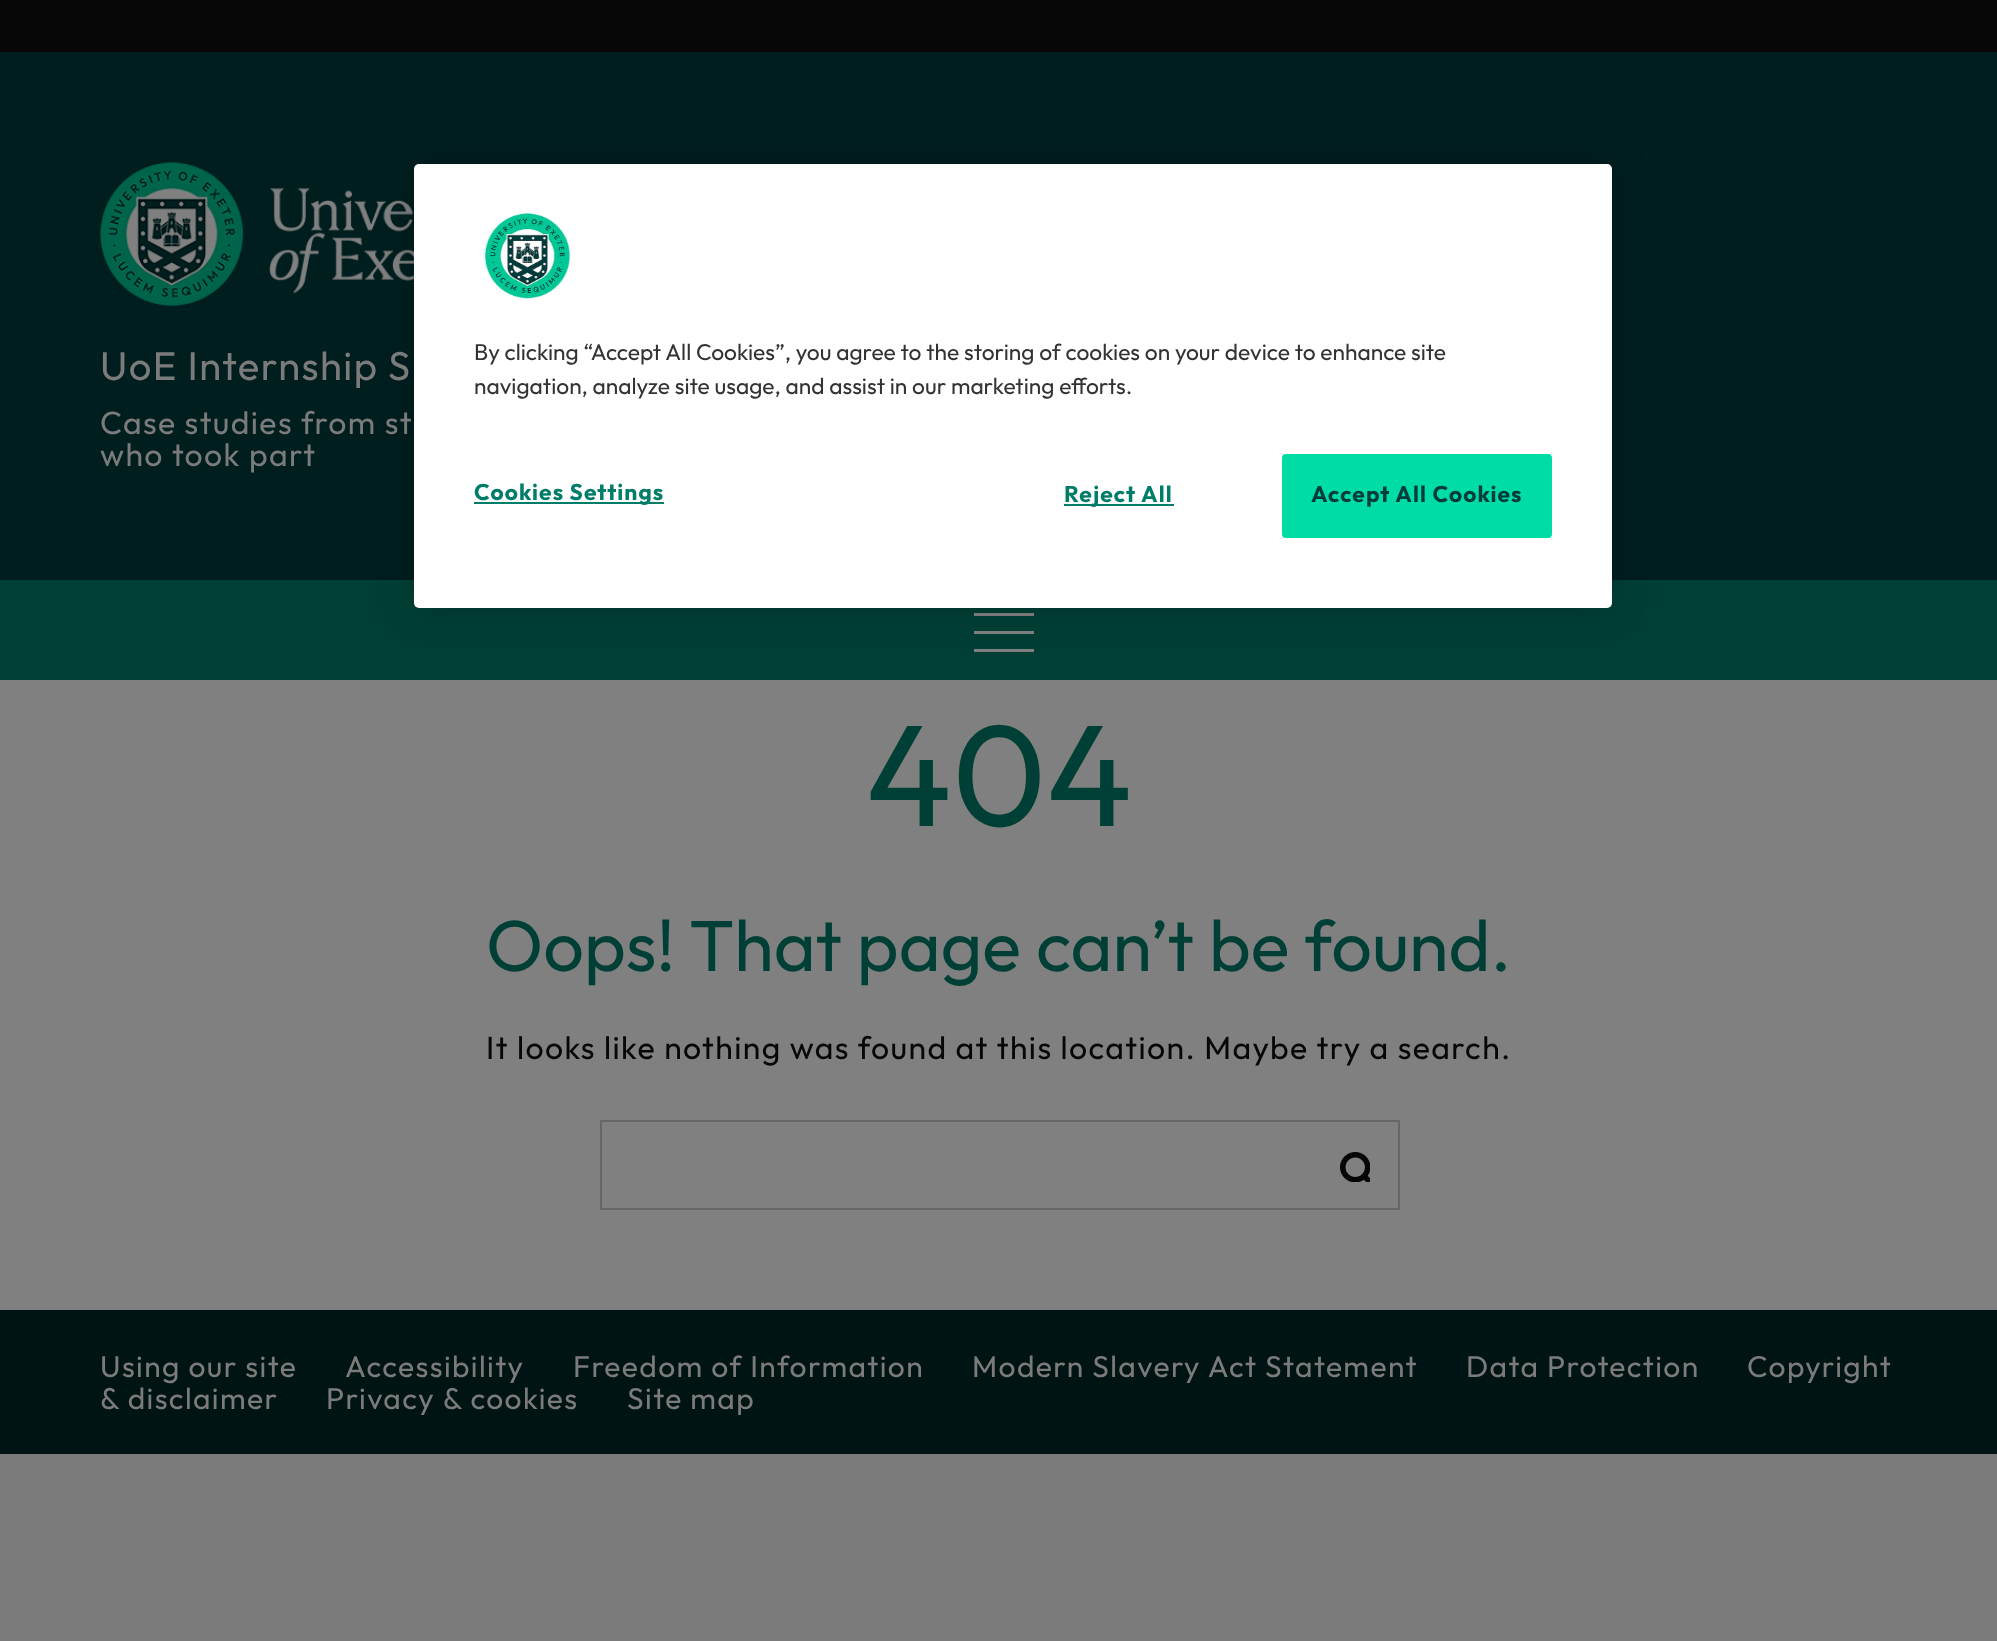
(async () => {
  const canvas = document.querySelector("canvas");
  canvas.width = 1997;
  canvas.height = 1641;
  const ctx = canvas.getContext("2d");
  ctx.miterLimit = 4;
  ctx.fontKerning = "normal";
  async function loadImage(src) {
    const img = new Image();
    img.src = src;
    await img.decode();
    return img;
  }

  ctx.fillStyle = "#7b7b7b";
  ctx.fillRect(0, 0, 1997, 1641);
  ctx.fillStyle = "#808080";
  ctx.fillRect(0, 680, 1997, 630);
  ctx.fillStyle = "#001e1e";
  ctx.fillRect(0, 52, 1997, 528);
  ctx.drawImage(await loadImage("img/2.png"), 100, 162, 314, 144);
  for (const [x, y, w, h, color] of [
    [0, 580, 1997, 100, "#003f35"],
    [974, 613, 60, 3, "#808080"],
    [974, 631, 60, 3, "#808080"],
    [974, 649, 60, 3, "#808080"],
  ]) {
    ctx.fillStyle = color;
    ctx.fillRect(x, y, w, h);
  }
  ctx.fillStyle = "rgba(0, 0, 0, 0.2)";
  ctx.filter = "blur(18px)";
  ctx.beginPath();
  ctx.roundRect(414, 164, 1198, 444, 5);
  ctx.fill();
  ctx.filter = "none";
  ctx.fillStyle = "#ffffff";
  ctx.beginPath();
  ctx.roundRect(414, 164, 1198, 444, 5);
  ctx.fill();
  ctx.drawImage(await loadImage("img/1.png"), 484, 212, 87, 88);
  ctx.fillStyle = "#007d69";
  ctx.fillRect(474, 502, 190, 2);
  ctx.fillRect(1064, 504, 110, 2);
  ctx.fillStyle = "#00dca5";
  ctx.beginPath();
  ctx.roundRect(1283, 455, 268, 82, 3);
  ctx.fill();
  ctx.strokeStyle = "#00dca5";
  ctx.lineWidth = 2;
  ctx.stroke();
  ctx.fillStyle = "#070707";
  ctx.fillRect(0, 0, 1997, 52);
  ctx.strokeStyle = "#666666";
  ctx.strokeRect(601, 1121, 798, 88);
  ctx.drawImage(await loadImage("img/3.png"), 1340, 1152, 30, 30);
  ctx.fillStyle = "#001414";
  ctx.fillRect(0, 1310, 1997, 144);
  ctx.font = "22.75px Outfit";
  ctx.fillStyle = "#333333";
  ctx.fillText("By clicking “Accept All Cookies”, you agree to the storing of cookies on your device to enhance site", 474, 360);
  ctx.fillText("navigation, analyze site usage, and assist in our marketing efforts.", 474, 394);
  ctx.letterSpacing = "1.1px";
  ctx.font = "bold 22.75px Outfit";
  ctx.fillStyle = "#007d69";
  ctx.fillText("Cookies Settings", 474, 500);
  ctx.fillText("Reject All", 1064, 502);
  ctx.fillStyle = "#003c3c";
  ctx.fillText("Accept All Cookies", 1311, 502);
  ctx.letterSpacing = "1.4px";
  ctx.font = "40px Outfit";
  ctx.fillStyle = "#7b7b7b";
  ctx.fillText("UoE Internship S", 100, 380);
  ctx.font = "32px Outfit";
  ctx.fillText("Case studies from st", 100, 434);
  ctx.fillText("who took part", 100, 466);
  ctx.letterSpacing = "0px";
  ctx.font = "144px Outfit";
  ctx.fillStyle = "#003f35";
  ctx.fillText("404", 866, 826);
  ctx.font = "72px Outfit";
  ctx.fillText("Oops! That page can’t be found.", 486, 971);
  ctx.letterSpacing = "1.4px";
  ctx.font = "32px Outfit";
  ctx.fillStyle = "#070707";
  ctx.fillText("It looks like nothing was found at this location. Maybe try a search.", 486, 1059);
  ctx.font = "30px Outfit";
  ctx.fillStyle = "#7b7b7b";
  for (const [text, x, y] of [
    ["Using our site", 100, 1377],
    ["Accessibility", 345, 1377],
    ["Freedom of Information", 573, 1377],
    ["Modern Slavery Act Statement", 972, 1377],
    ["Data Protection", 1466, 1377],
    ["Copyright", 1747, 1377],
    ["& disclaimer", 100, 1409],
    ["Privacy & cookies", 326, 1409],
    ["Site map", 627, 1409],
  ]) {
    ctx.fillText(text, x, y);
  }
})();
